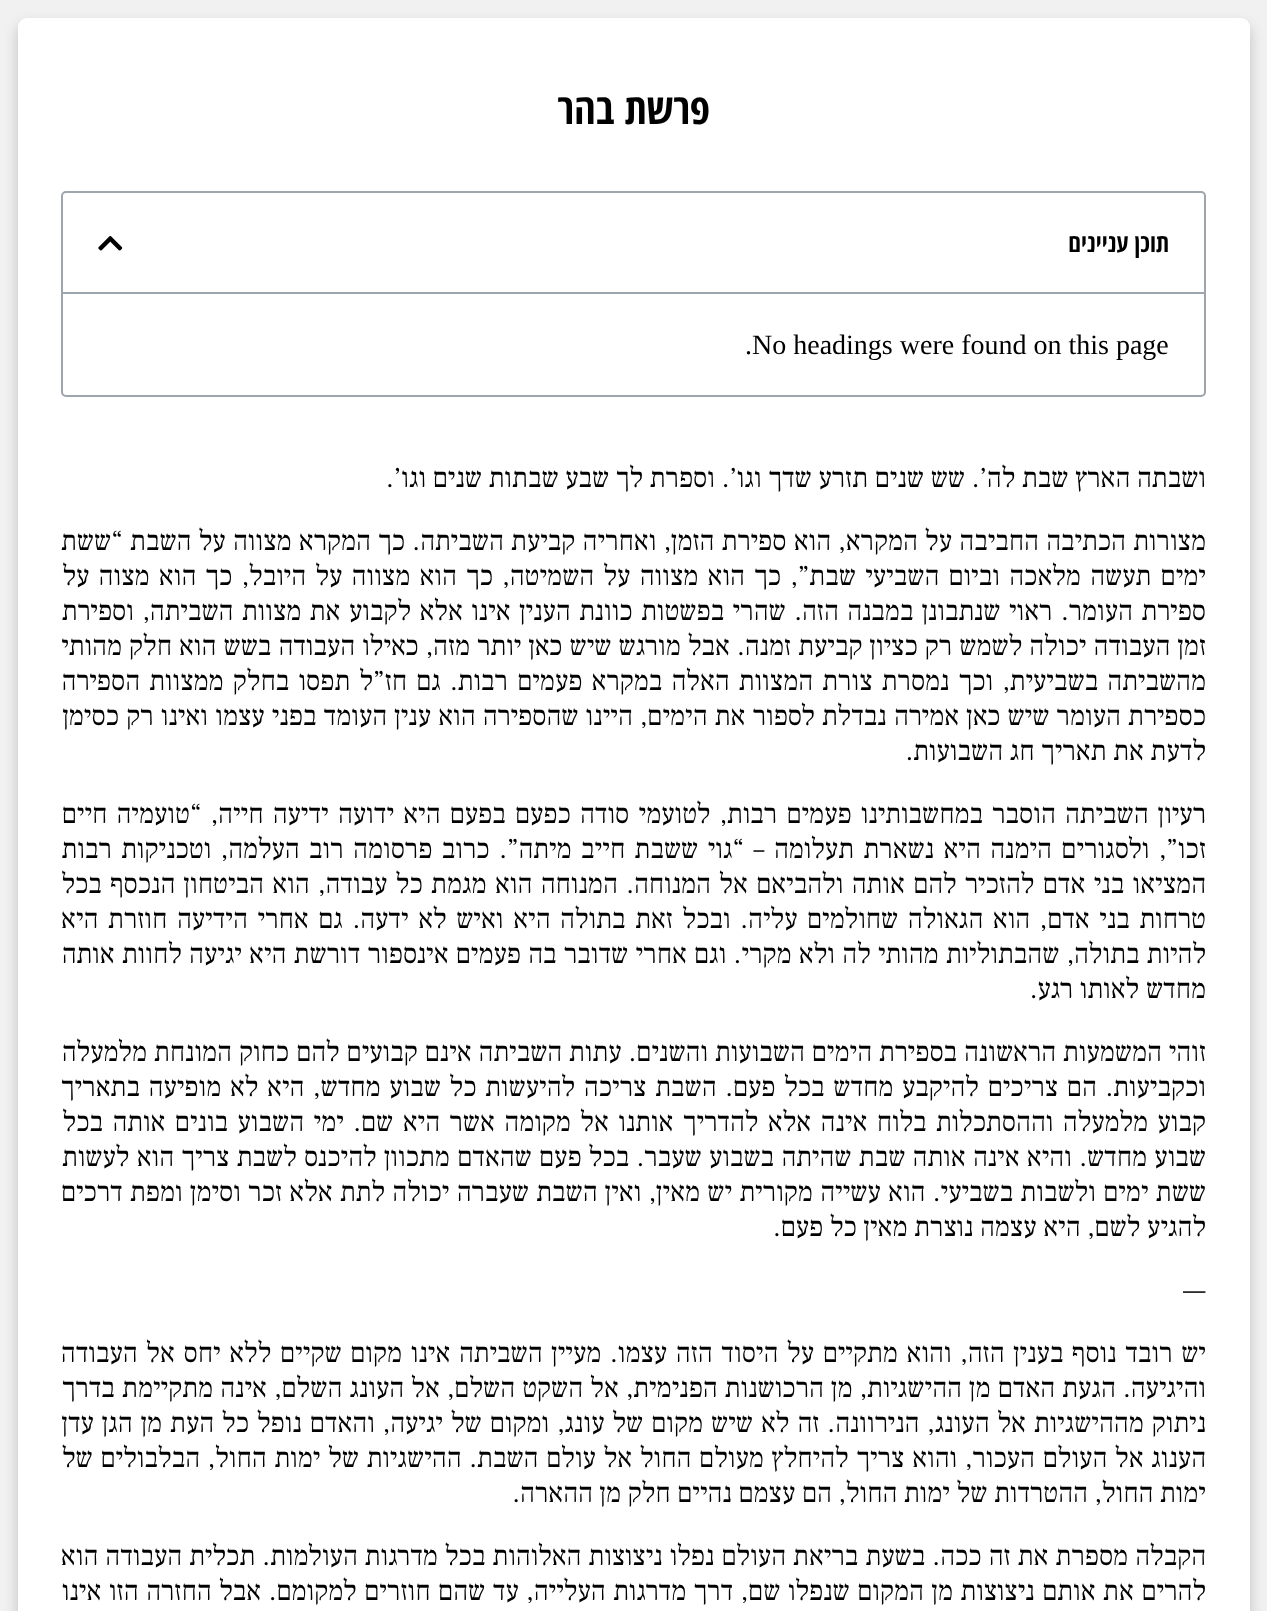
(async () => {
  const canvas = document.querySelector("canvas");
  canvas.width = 1267;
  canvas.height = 1611;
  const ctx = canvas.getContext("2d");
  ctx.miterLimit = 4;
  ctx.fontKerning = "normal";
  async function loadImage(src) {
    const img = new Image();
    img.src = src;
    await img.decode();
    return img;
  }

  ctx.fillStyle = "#f1f1f1";
  ctx.fillRect(0, 0, 1267, 1611);
  ctx.fillStyle = "rgba(0, 0, 0, 0.2)";
  ctx.filter = "blur(7px)";
  ctx.beginPath();
  ctx.roundRect(18, 25, 1232, 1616, 9);
  ctx.fill();
  ctx.filter = "none";
  ctx.fillStyle = "#ffffff";
  ctx.beginPath();
  ctx.roundRect(18, 18, 1232, 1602, 9);
  ctx.fill();
  ctx.beginPath();
  ctx.roundRect(62, 192, 1143, 204, 4);
  ctx.strokeStyle = "#9da5ae";
  ctx.lineWidth = 2;
  ctx.stroke();
  ctx.fillStyle = "#9da5ae";
  ctx.fillRect(63, 292, 1141, 2);
  ctx.drawImage(await loadImage("img/1.png"), 98, 236, 25, 15);
  ctx.direction = "rtl";
  ctx.font = "bold 42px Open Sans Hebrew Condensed";
  ctx.fillStyle = "#000000";
  ctx.fillText("פרשת בהר", 710, 124);
  ctx.font = "bold 25px Open Sans Hebrew Condensed";
  ctx.fillText("תוכן עניינים", 1169, 252);
  ctx.direction = "ltr";
  ctx.font = "28px Liberation Serif";
  ctx.fillText(".No headings were found on this page", 745, 354);
  ctx.direction = "rtl";
  ctx.font = "28px Frank Ruhl Libre";
  ctx.fillText("ושבתה הארץ שבת לה’. שש שנים תזרע שדך וגו’. וספרת לך שבע שבתות שנים וגו’.", 1206, 487);
  ctx.wordSpacing = "0.6px";
  ctx.fillText("מצורות הכתיבה החביבה על המקרא, הוא ספירת הזמן, ואחריה קביעת השביתה. כך המקרא מצווה על השבת “ששת", 1206, 550);
  ctx.wordSpacing = "2.6px";
  ctx.fillText("ימים תעשה מלאכה וביום השביעי שבת”, כך הוא מצווה על השמיטה, כך הוא מצווה על היובל, כך הוא מצוה על", 1206, 585);
  ctx.wordSpacing = "1.75px";
  ctx.fillText("ספירת העומר. ראוי שנתבונן במבנה הזה. שהרי בפשטות כוונת הענין אינו אלא לקבוע את מצוות השביתה, וספירת", 1206, 620);
  ctx.wordSpacing = "0.4px";
  ctx.fillText("זמן העבודה יכולה לשמש רק כציון קביעת זמנה. אבל מורגש שיש כאן יותר מזה, כאילו העבודה בשש הוא חלק מהותי", 1206, 655);
  ctx.wordSpacing = "2.5px";
  ctx.fillText("מהשביתה בשביעית, וכך נמסרת צורת המצוות האלה במקרא פעמים רבות. גם חז”ל תפסו בחלק ממצוות הספירה", 1206, 690);
  ctx.wordSpacing = "0.5px";
  ctx.fillText("כספירת העומר שיש כאן אמירה נבדלת לספור את הימים, היינו שהספירה הוא ענין העומד בפני עצמו ואינו רק כסימן", 1206, 725);
  ctx.wordSpacing = "0px";
  ctx.fillText("לדעת את תאריך חג השבועות.", 1206, 760);
  ctx.wordSpacing = "2.5px";
  ctx.fillText("רעיון השביתה הוסבר במחשבותינו פעמים רבות, לטועמי סודה כפעם בפעם היא ידועה ידיעה חייה, “טועמיה חיים", 1206, 823);
  ctx.wordSpacing = "2.75px";
  ctx.fillText("זכו”, ולסגורים הימנה היא נשארת תעלומה – “גוי ששבת חייב מיתה”. כרוב פרסומה רוב העלמה, וטכניקות רבות", 1206, 858);
  ctx.wordSpacing = "1.7px";
  ctx.fillText("המציאו בני אדם להזכיר להם אותה ולהביאם אל המנוחה. המנוחה הוא מגמת כל עבודה, הוא הביטחון הנכסף בכל", 1206, 893);
  ctx.wordSpacing = "2.9px";
  ctx.fillText("טרחות בני אדם, הוא הגאולה שחולמים עליה. ובכל זאת בתולה היא ואיש לא ידעה. גם אחרי הידיעה חוזרת היא", 1206, 928);
  ctx.wordSpacing = "0.6px";
  ctx.fillText("להיות בתולה, שהבתוליות מהותי לה ולא מקרי. וגם אחרי שדובר בה פעמים אינספור דורשת היא יגיעה לחוות אותה", 1206, 963);
  ctx.wordSpacing = "0px";
  ctx.fillText("מחדש לאותו רגע.", 1206, 998);
  ctx.wordSpacing = "0.25px";
  ctx.fillText("זוהי המשמעות הראשונה בספירת הימים השבועות והשנים. עתות השביתה אינם קבועים להם כחוק המונחת מלמעלה", 1206, 1061);
  ctx.wordSpacing = "2px";
  ctx.fillText("וכקביעות. הם צריכים להיקבע מחדש בכל פעם. השבת צריכה להיעשות כל שבוע מחדש, היא לא מופיעה בתאריך", 1206, 1096);
  ctx.wordSpacing = "2.75px";
  ctx.fillText("קבוע מלמעלה וההסתכלות בלוח אינה אלא להדריך אותנו אל מקומה אשר היא שם. ימי השבוע בונים אותה בכל", 1206, 1131);
  ctx.wordSpacing = "0.6px";
  ctx.fillText("שבוע מחדש. והיא אינה אותה שבת שהיתה בשבוע שעבר. בכל פעם שהאדם מתכוון להיכנס לשבת צריך הוא לעשות", 1206, 1166);
  ctx.fillText("ששת ימים ולשבות בשביעי. הוא עשייה מקורית יש מאין, ואין השבת שעברה יכולה לתת אלא זכר וסימן ומפת דרכים", 1206, 1201);
  ctx.wordSpacing = "0px";
  ctx.fillText("להגיע לשם, היא עצמה נוצרת מאין כל פעם.", 1206, 1236);
  ctx.direction = "ltr";
  ctx.fillText("—", 1183, 1299);
  ctx.wordSpacing = "2px";
  ctx.direction = "rtl";
  ctx.fillText("יש רובד נוסף בענין הזה, והוא מתקיים על היסוד הזה עצמו. מעיין השביתה אינו מקום שקיים ללא יחס אל העבודה", 1206, 1362);
  ctx.wordSpacing = "0.5px";
  ctx.fillText("והיגיעה. הגעת האדם מן ההישגיות, מן הרכושנות הפנימית, אל השקט השלם, אל העונג השלם, אינה מתקיימת בדרך", 1206, 1397);
  ctx.wordSpacing = "1.3px";
  ctx.fillText("ניתוק מההישגיות אל העונג, הנירוונה. זה לא שיש מקום של עונג, ומקום של יגיעה, והאדם נופל כל העת מן הגן עדן", 1206, 1432);
  ctx.wordSpacing = "1.1px";
  ctx.fillText("הענוג אל העולם העכור, והוא צריך להיחלץ מעולם החול אל עולם השבת. ההישגיות של ימות החול, הבלבולים של", 1206, 1467);
  ctx.wordSpacing = "0px";
  ctx.fillText("ימות החול, ההטרדות של ימות החול, הם עצמם נהיים חלק מן ההארה.", 1206, 1502);
  ctx.wordSpacing = "0.4px";
  ctx.fillText("הקבלה מספרת את זה ככה. בשעת בריאת העולם נפלו ניצוצות האלוהות בכל מדרגות העולמות. תכלית העבודה הוא", 1206, 1565);
  ctx.wordSpacing = "0.9px";
  ctx.fillText("להרים את אותם ניצוצות מן המקום שנפלו שם, דרך מדרגות העלייה, עד שהם חוזרים למקומם. אבל החזרה הזו אינו", 1206, 1600);
})();
